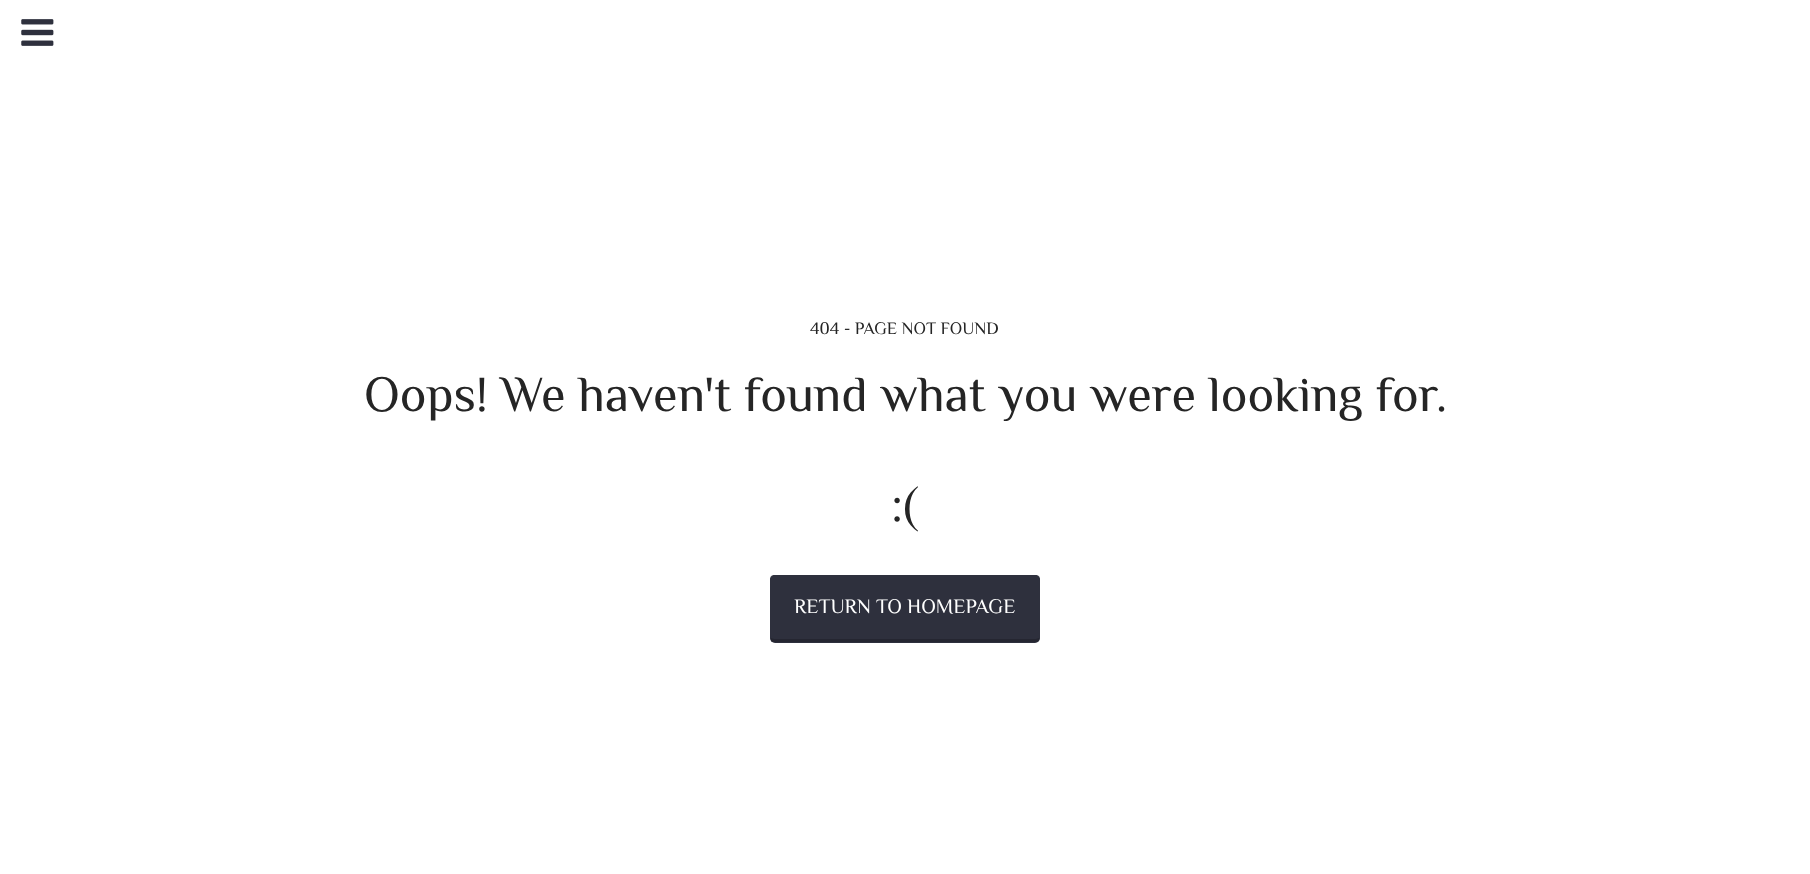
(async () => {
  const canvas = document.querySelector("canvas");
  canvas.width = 1810;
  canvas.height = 874;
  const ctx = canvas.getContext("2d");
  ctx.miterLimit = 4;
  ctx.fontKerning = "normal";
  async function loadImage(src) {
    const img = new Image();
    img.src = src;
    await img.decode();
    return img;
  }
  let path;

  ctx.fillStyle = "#ffffff";
  ctx.fillRect(0, 0, 1810, 874);
  ctx.drawImage(await loadImage("img/1.png"), 21, 19, 33, 27);
  ctx.fillStyle = "#2e303d";
  ctx.beginPath();
  ctx.roundRect(770, 575, 270, 68, 5);
  ctx.fill();
  path = new Path2D("M774 575L771 576L772 577L774 576H1036L1038 577L1039 576L1036 575Z");
  ctx.fill(path);
  path = new Path2D("M1040 638V579L1039 576L1038 577L1039 579V638V640Z");
  ctx.fill(path);
  ctx.fillStyle = "#252631";
  path = new Path2D("M1039 640L1037 642H774C773 642 771 642 771 640V638L774 639H1036L1039 638Z");
  ctx.fill(path);
  ctx.fillStyle = "#2e303d";
  path = new Path2D("M770 579V638L771 640V638V579L772 577L771 576Z");
  ctx.fill(path);
  ctx.font = "17.5px Philosopher";
  ctx.fillStyle = "#252525";
  ctx.fillText("404 - PAGE NOT FOUND", 810, 334);
  ctx.font = "50.35px Philosopher";
  ctx.fillText("Oops! We haven't found what you were looking for.", 364, 411);
  ctx.fillText(":(", 891, 521);
  ctx.font = "20.6px Philosopher";
  ctx.fillStyle = "#ffffff";
  ctx.fillText("RETURN TO HOMEPAGE", 794, 613);
})();
